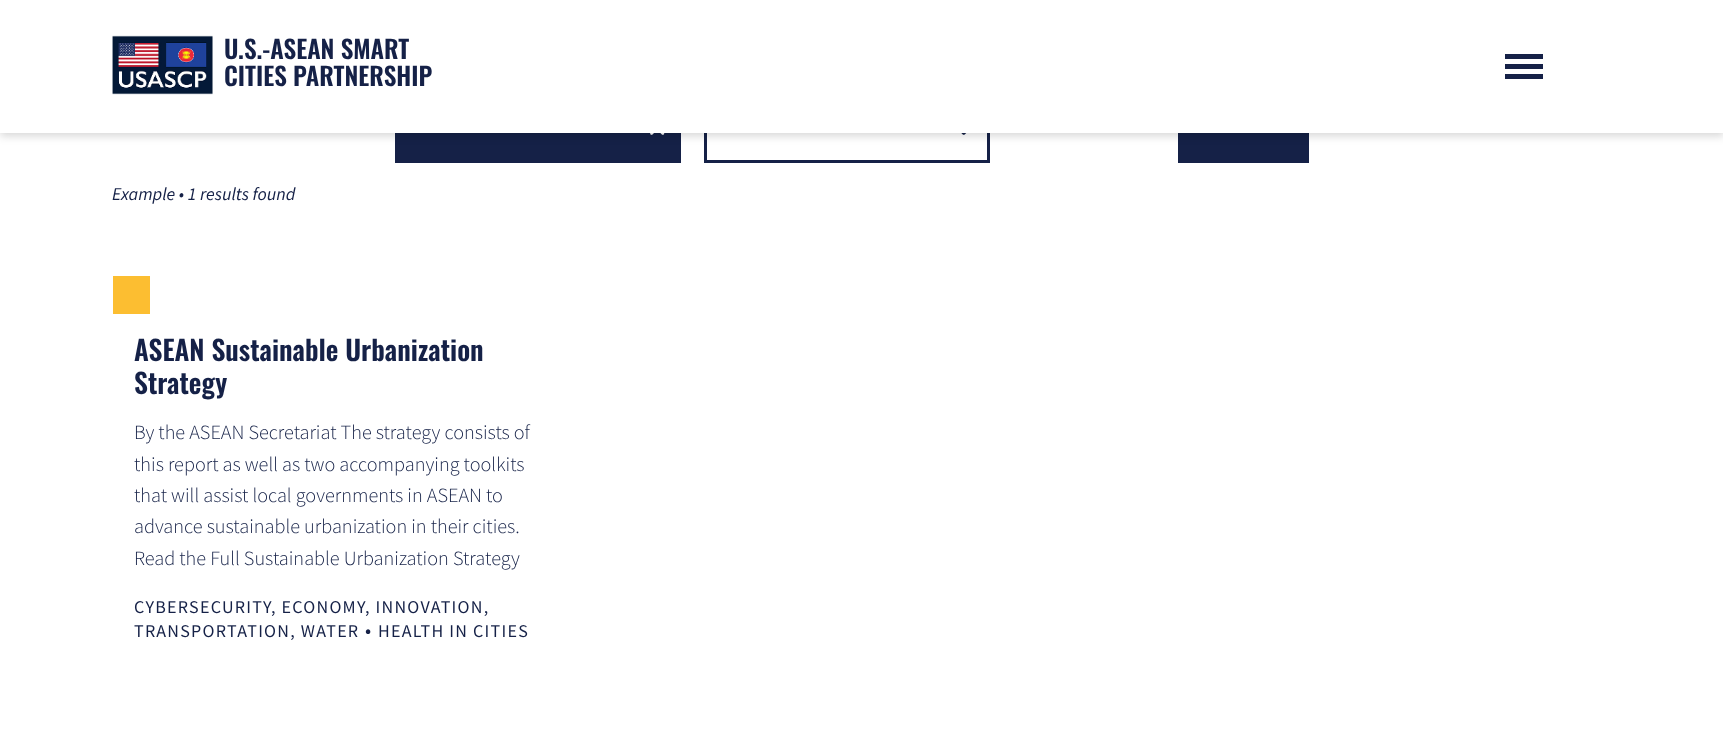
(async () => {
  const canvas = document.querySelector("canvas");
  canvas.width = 1723;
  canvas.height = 754;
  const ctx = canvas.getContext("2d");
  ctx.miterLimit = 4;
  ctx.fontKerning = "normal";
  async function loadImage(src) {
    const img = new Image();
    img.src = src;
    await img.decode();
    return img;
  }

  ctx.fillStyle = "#ffffff";
  ctx.fillRect(0, 0, 1723, 754);
  ctx.fillStyle = "#152147";
  ctx.fillRect(395, 133, 286, 30);
  ctx.drawImage(await loadImage("img/2.png"), 650, 133, 15, 2);
  ctx.strokeStyle = "#152147";
  ctx.lineWidth = 3;
  ctx.strokeRect(705.5, 94.5, 283, 67);
  ctx.drawImage(await loadImage("img/3.png"), 961, 133, 6, 2);
  ctx.fillRect(1178, 133, 131, 30);
  ctx.fillStyle = "rgba(0, 0, 0, 0.16)";
  ctx.filter = "blur(4px)";
  ctx.beginPath();
  ctx.rect(0, 4, 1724, 132);
  ctx.fill();
  ctx.filter = "none";
  ctx.fillStyle = "#ffffff";
  ctx.fillRect(0, 0, 1723, 133);
  ctx.drawImage(await loadImage("img/1.png"), 112, 35, 101, 60);
  for (const [x, y, w, h, color] of [
    [1505, 54, 38, 5, "#152147"],
    [1505, 74, 38, 5, "#152147"],
    [1505, 64, 38, 5, "#152147"],
    [113, 276, 37, 38, "#fcbe31"],
  ]) {
    ctx.fillStyle = color;
    ctx.fillRect(x, y, w, h);
  }
  ctx.font = "600 25px Oswald";
  ctx.fillStyle = "#152147";
  ctx.fillText("U.S.-ASEAN SMART", 224, 59);
  ctx.fillText("CITIES PARTNERSHIP", 224, 86);
  ctx.font = "italic 18px Source Sans Pro";
  ctx.fillText("Example • 1 results found", 112, 200);
  ctx.font = "600 27.5px Oswald";
  ctx.fillText("ASEAN Sustainable Urbanization", 134, 361);
  ctx.fillText("Strategy", 134, 394);
  ctx.font = "300 20.25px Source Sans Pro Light";
  for (const [text, x, y] of [
    ["By the ASEAN Secretariat The strategy consists of", 134, 439],
    ["this report as well as two accompanying toolkits", 134, 471],
    ["that will assist local governments in ASEAN to", 134, 502],
    ["advance sustainable urbanization in their cities.", 134, 533],
    ["Read the Full Sustainable Urbanization Strategy", 134, 565],
  ]) {
    ctx.fillText(text, x, y);
  }
  ctx.letterSpacing = "1.25px";
  ctx.font = "18px Source Sans Pro";
  for (const [text, x, y] of [
    ["CYBERSECURITY", 134, 613],
    [", ECONOMY", 271, 613],
    [", INNOVATION,", 365, 613],
    ["TRANSPORTATION, WATER", 134, 637],
  ]) {
    ctx.fillText(text, x, y);
  }
  ctx.font = "20.25px Source Sans Pro";
  ctx.fillText("•", 365, 637);
  ctx.font = "18px Source Sans Pro";
  ctx.fillText("HEALTH IN CITIES", 378, 637);
})();
